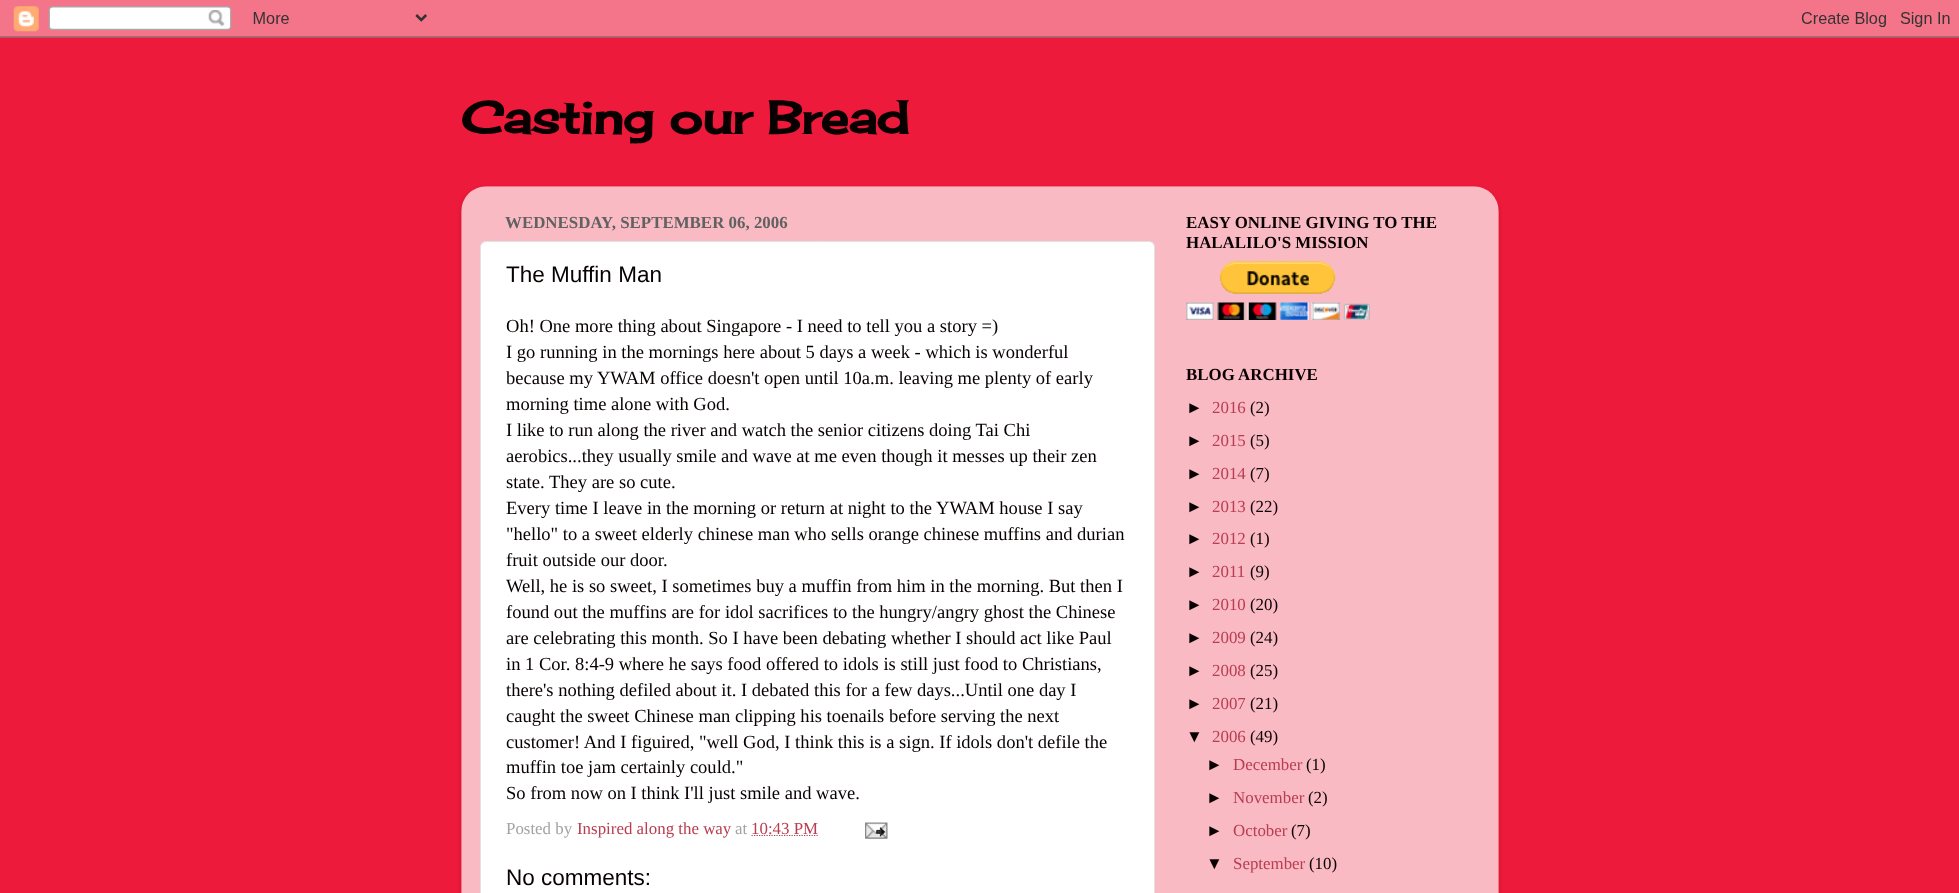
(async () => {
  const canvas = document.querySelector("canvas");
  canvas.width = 1959;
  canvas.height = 893;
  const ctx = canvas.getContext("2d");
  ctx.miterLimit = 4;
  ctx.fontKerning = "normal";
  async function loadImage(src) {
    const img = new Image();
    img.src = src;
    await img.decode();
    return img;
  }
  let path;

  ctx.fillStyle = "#ed1a3b";
  ctx.fillRect(0, 0, 1959, 893);
  ctx.drawImage(await loadImage("img/1.png"), 0, 0, 1959, 38);
  ctx.save();
  path = new Path2D("M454 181H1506V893H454ZM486 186H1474C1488 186 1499 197 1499 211V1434H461V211C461 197 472 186 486 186Z");
  ctx.clip(path, "evenodd");
  ctx.fillStyle = "rgba(0, 0, 0, 0.15)";
  ctx.filter = "blur(2px)";
  ctx.beginPath();
  ctx.roundRect(461, 188, 1038, 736, 25);
  ctx.fill();
  ctx.filter = "none";
  ctx.restore();
  ctx.drawImage(await loadImage("img/2.png"), 461, 186, 1038, 707);
  ctx.fillStyle = "#ffffff";
  ctx.beginPath();
  ctx.roundRect(480.5, 241.5, 674, 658, 5.5);
  ctx.fill();
  ctx.strokeStyle = "#e2e2e2";
  ctx.stroke();
  path = new Path2D("M751.5 835.5H818.5");
  ctx.strokeStyle = "#b83d50";
  ctx.lineWidth = 1.2;
  ctx.setLineDash([1.25, 1.25]);
  ctx.stroke(path);
  ctx.drawImage(await loadImage("img/3.png"), 865, 822, 23, 17);
  ctx.drawImage(await loadImage("img/4.png"), 1186, 261, 184, 59);
  ctx.font = "bold 45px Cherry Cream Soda";
  ctx.fillStyle = "#080001";
  ctx.fillText("Casting our Bread", 461, 134);
  ctx.font = "bold 16.9px Liberation Serif";
  ctx.fillStyle = "#616161";
  ctx.fillText("WEDNESDAY, SEPTEMBER 06, 2006", 505, 228);
  ctx.font = "22.5px Liberation Sans";
  ctx.fillStyle = "#080001";
  ctx.fillText("The Muffin Man", 506, 282);
  ctx.font = "18.55px Liberation Serif";
  for (const [text, x, y] of [
    ["Oh! One more thing about Singapore - I need to tell you a story =)", 506, 332],
    ["I go running in the mornings here about 5 days a week - which is wonderful", 506, 358],
    ["because my YWAM office doesn't open until 10a.m. leaving me plenty of early", 506, 384],
    ["morning time alone with God.", 506, 410],
    ["I like to run along the river and watch the senior citizens doing Tai Chi", 506, 436],
    ["aerobics...they usually smile and wave at me even though it messes up their zen", 506, 462],
    ["state.", 506, 488],
    ["They are so cute.", 549, 488],
    ["Every time I leave in the morning or return at night to the YWAM house I say", 506, 514],
    ["\"hello\" to a sweet elderly chinese man who sells orange chinese muffins and durian", 506, 540],
    ["fruit outside our door.", 506, 566],
    ["Well, he is so sweet, I sometimes buy a muffin from him in the morning. But then I", 506, 592],
    ["found out the muffins are for idol sacrifices to the hungry/angry ghost the Chinese", 506, 618],
    ["are celebrating this month. So I have been debating whether I should act like Paul", 506, 644],
    ["in 1 Cor. 8:4-9 where he says food offered to idols is still just food to Christians,", 506, 670],
    ["there's nothing defiled about it. I debated this for a few days...Until one day I", 506, 696],
    ["caught the sweet Chinese man clipping his toenails before serving the next", 506, 722],
    ["customer! And I figuired, \"well God, I think this is a sign. If idols don't defile the", 506, 748],
    ["muffin toe jam certainly could.\"", 506, 773],
    ["So from now on I think I'll just smile and wave.", 506, 799],
  ]) {
    ctx.fillText(text, x, y);
  }
  ctx.font = "16.9px Liberation Serif";
  ctx.fillStyle = "#a3a3a3";
  ctx.fillText("Posted by", 506, 834);
  ctx.fillStyle = "#b83d50";
  ctx.fillText("Inspired along the way", 577, 834);
  ctx.fillStyle = "#a3a3a3";
  ctx.fillText("at", 735, 834);
  ctx.fillStyle = "#b83d50";
  ctx.fillText("10:43 PM", 751, 834);
  ctx.font = "22.5px Liberation Sans";
  ctx.fillStyle = "#080001";
  ctx.fillText("No comments:", 506, 885);
  ctx.font = "bold 16.9px Liberation Serif";
  for (const [text, x, y] of [
    ["EASY ONLINE GIVING TO THE", 1186, 228],
    ["HALALILO'S MISSION", 1186, 248],
    ["BLOG ARCHIVE", 1186, 380],
  ]) {
    ctx.fillText(text, x, y);
  }
  ctx.font = "16.9px Liberation Sans";
  ctx.fillText("►", 1186, 413);
  ctx.font = "16.9px Liberation Serif";
  ctx.fillStyle = "#b83d50";
  ctx.fillText("2016", 1212, 413);
  ctx.fillStyle = "#080001";
  ctx.fillText("(2)", 1250, 413);
  ctx.font = "16.9px Liberation Sans";
  ctx.fillText("►", 1186, 446);
  ctx.font = "16.9px Liberation Serif";
  ctx.fillStyle = "#b83d50";
  ctx.fillText("2015", 1212, 446);
  ctx.fillStyle = "#080001";
  ctx.fillText("(5)", 1250, 446);
  ctx.font = "16.9px Liberation Sans";
  ctx.fillText("►", 1186, 479);
  ctx.font = "16.9px Liberation Serif";
  ctx.fillStyle = "#b83d50";
  ctx.fillText("2014", 1212, 479);
  ctx.fillStyle = "#080001";
  ctx.fillText("(7)", 1250, 479);
  ctx.font = "16.9px Liberation Sans";
  ctx.fillText("►", 1186, 512);
  ctx.font = "16.9px Liberation Serif";
  ctx.fillStyle = "#b83d50";
  ctx.fillText("2013", 1212, 512);
  ctx.fillStyle = "#080001";
  ctx.fillText("(22)", 1250, 512);
  ctx.font = "16.9px Liberation Sans";
  ctx.fillText("►", 1186, 544);
  ctx.font = "16.9px Liberation Serif";
  ctx.fillStyle = "#b83d50";
  ctx.fillText("2012", 1212, 544);
  ctx.fillStyle = "#080001";
  ctx.fillText("(1)", 1250, 544);
  ctx.font = "16.9px Liberation Sans";
  ctx.fillText("►", 1186, 577);
  ctx.font = "16.9px Liberation Serif";
  ctx.fillStyle = "#b83d50";
  ctx.fillText("2011", 1212, 577);
  ctx.fillStyle = "#080001";
  ctx.fillText("(9)", 1250, 577);
  ctx.font = "16.9px Liberation Sans";
  ctx.fillText("►", 1186, 610);
  ctx.font = "16.9px Liberation Serif";
  ctx.fillStyle = "#b83d50";
  ctx.fillText("2010", 1212, 610);
  ctx.fillStyle = "#080001";
  ctx.fillText("(20)", 1250, 610);
  ctx.font = "16.9px Liberation Sans";
  ctx.fillText("►", 1186, 643);
  ctx.font = "16.9px Liberation Serif";
  ctx.fillStyle = "#b83d50";
  ctx.fillText("2009", 1212, 643);
  ctx.fillStyle = "#080001";
  ctx.fillText("(24)", 1250, 643);
  ctx.font = "16.9px Liberation Sans";
  ctx.fillText("►", 1186, 676);
  ctx.font = "16.9px Liberation Serif";
  ctx.fillStyle = "#b83d50";
  ctx.fillText("2008", 1212, 676);
  ctx.fillStyle = "#080001";
  ctx.fillText("(25)", 1250, 676);
  ctx.font = "16.9px Liberation Sans";
  ctx.fillText("►", 1186, 709);
  ctx.font = "16.9px Liberation Serif";
  ctx.fillStyle = "#b83d50";
  ctx.fillText("2007", 1212, 709);
  ctx.fillStyle = "#080001";
  ctx.fillText("(21)", 1250, 709);
  ctx.font = "16.9px Liberation Sans";
  ctx.fillText("▼", 1186, 742);
  ctx.font = "16.9px Liberation Serif";
  ctx.fillStyle = "#b83d50";
  ctx.fillText("2006", 1212, 742);
  ctx.fillStyle = "#080001";
  ctx.fillText("(49)", 1250, 742);
  ctx.font = "16.9px Liberation Sans";
  ctx.fillText("►", 1206, 770);
  ctx.font = "16.9px Liberation Serif";
  ctx.fillStyle = "#b83d50";
  ctx.fillText("December", 1233, 770);
  ctx.fillStyle = "#080001";
  ctx.fillText("(1)", 1306, 770);
  ctx.font = "16.9px Liberation Sans";
  ctx.fillText("►", 1206, 803);
  ctx.font = "16.9px Liberation Serif";
  ctx.fillStyle = "#b83d50";
  ctx.fillText("November", 1233, 803);
  ctx.fillStyle = "#080001";
  ctx.fillText("(2)", 1308, 803);
  ctx.font = "16.9px Liberation Sans";
  ctx.fillText("►", 1206, 836);
  ctx.font = "16.9px Liberation Serif";
  ctx.fillStyle = "#b83d50";
  ctx.fillText("October", 1233, 836);
  ctx.fillStyle = "#080001";
  ctx.fillText("(7)", 1291, 836);
  ctx.font = "16.9px Liberation Sans";
  ctx.fillText("▼", 1206, 869);
  ctx.font = "16.9px Liberation Serif";
  ctx.fillStyle = "#b83d50";
  ctx.fillText("September", 1233, 869);
  ctx.fillStyle = "#080001";
  ctx.fillText("(10)", 1309, 869);
})();
